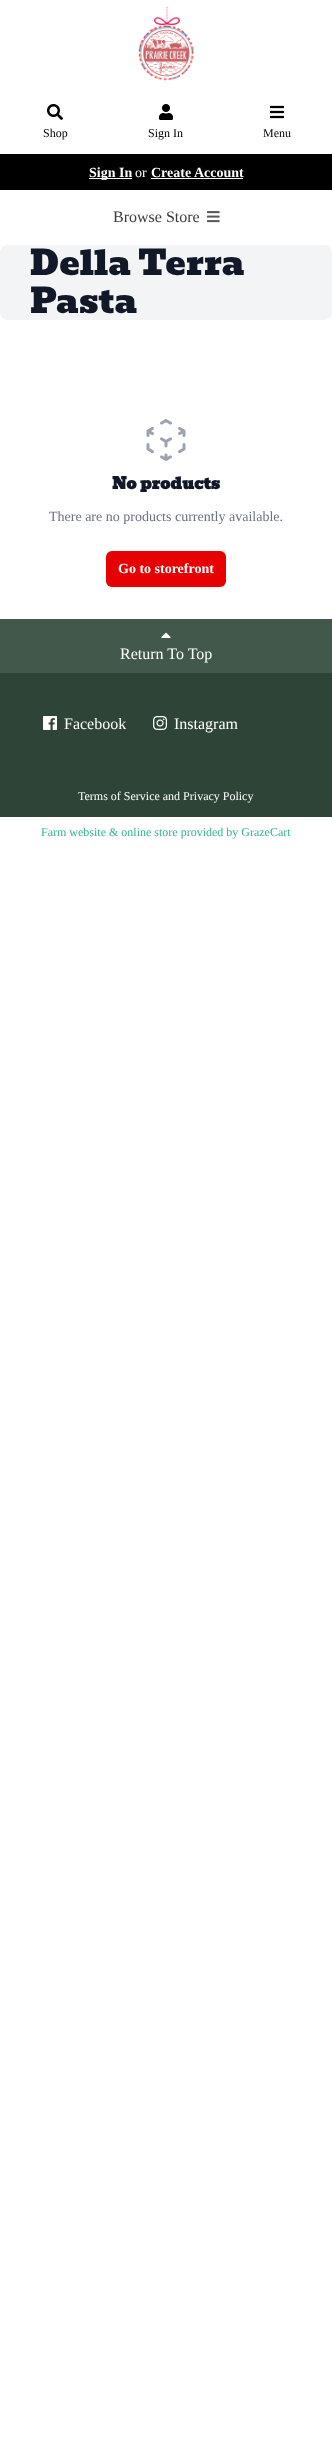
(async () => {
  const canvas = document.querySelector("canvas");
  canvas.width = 332;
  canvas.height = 2448;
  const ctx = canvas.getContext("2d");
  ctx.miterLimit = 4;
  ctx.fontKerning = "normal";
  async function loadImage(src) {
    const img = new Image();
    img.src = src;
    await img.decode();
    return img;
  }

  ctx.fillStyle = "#ffffff";
  ctx.fillRect(0, 0, 332, 2448);
  ctx.drawImage(await loadImage("img/1.png"), 138, 7, 56, 74);
  ctx.drawImage(await loadImage("img/2.png"), 47, 104, 16, 16);
  ctx.drawImage(await loadImage("img/3.png"), 159, 104, 14, 16);
  ctx.drawImage(await loadImage("img/4.png"), 270, 105, 14, 14);
  for (const [x, y, w, h, color] of [
    [0, 154, 332, 36, "#000000"],
    [89, 178, 43, 1, "#ffffff"],
    [151, 178, 92, 1, "#ffffff"],
  ]) {
    ctx.fillStyle = color;
    ctx.fillRect(x, y, w, h);
  }
  ctx.drawImage(await loadImage("img/5.png"), 207, 211, 13, 12);
  ctx.fillStyle = "#f3f4f6";
  ctx.beginPath();
  ctx.roundRect(0, 245, 332, 75, 8);
  ctx.fill();
  ctx.drawImage(await loadImage("img/6.png"), 146, 419, 40, 42);
  ctx.fillStyle = "rgba(0, 0, 0, 0.05)";
  ctx.filter = "blur(1px)";
  ctx.beginPath();
  ctx.roundRect(106, 552, 120, 36, 6);
  ctx.fill();
  ctx.filter = "none";
  ctx.fillStyle = "#e60202";
  ctx.beginPath();
  ctx.roundRect(106, 551, 120, 36, 6);
  ctx.fill();
  ctx.fillStyle = "#42584a";
  ctx.fillRect(0, 619, 332, 54);
  ctx.drawImage(await loadImage("img/7.png"), 161, 632, 10, 6);
  ctx.fillStyle = "#2e4436";
  ctx.fillRect(0, 673, 332, 144);
  ctx.drawImage(await loadImage("img/8.png"), 43, 716, 14, 14);
  ctx.drawImage(await loadImage("img/9.png"), 153, 716, 15, 14);
  ctx.font = "12px Liberation Serif";
  ctx.fillStyle = "#000000";
  for (const [text, x, y] of [
    ["Shop", 43, 137],
    ["Sign In", 148, 137],
    ["Menu", 263, 137],
  ]) {
    ctx.fillText(text, x, y);
  }
  ctx.font = "bold 14px Liberation Serif";
  ctx.fillStyle = "#ffffff";
  ctx.fillText("Sign In", 89, 177);
  ctx.font = "14px Liberation Serif";
  ctx.fillText("or", 135, 177);
  ctx.font = "bold 14px Liberation Serif";
  ctx.fillText("Create Account", 151, 177);
  ctx.font = "16px Liberation Serif";
  ctx.fillStyle = "#3d3d3d";
  ctx.fillText("Browse Store", 113, 222);
  ctx.font = "34px Bevan";
  ctx.fillStyle = "#111827";
  ctx.fillText("Della Terra", 30, 275);
  ctx.fillText("Pasta", 30, 313);
  ctx.font = "bold 16px Bevan";
  ctx.fillText("No products", 112, 489);
  ctx.font = "14px Liberation Serif";
  ctx.fillStyle = "#6b7280";
  ctx.fillText("There are no products currently available.", 49, 521);
  ctx.font = "bold 14px Liberation Serif";
  ctx.fillStyle = "#ffffff";
  ctx.fillText("Go to storefront", 118, 573);
  ctx.font = "16px Liberation Serif";
  for (const [text, x, y] of [
    ["Return To Top", 120, 659],
    ["Facebook", 64, 729],
    ["Instagram", 174, 729],
  ]) {
    ctx.fillText(text, x, y);
  }
  ctx.font = "12px Liberation Serif";
  ctx.fillText("Terms of Service and Privacy Policy", 78, 800);
  ctx.fillStyle = "#34b393";
  ctx.fillText("Farm website & online store provided by GrazeCart", 41, 836);
})();
